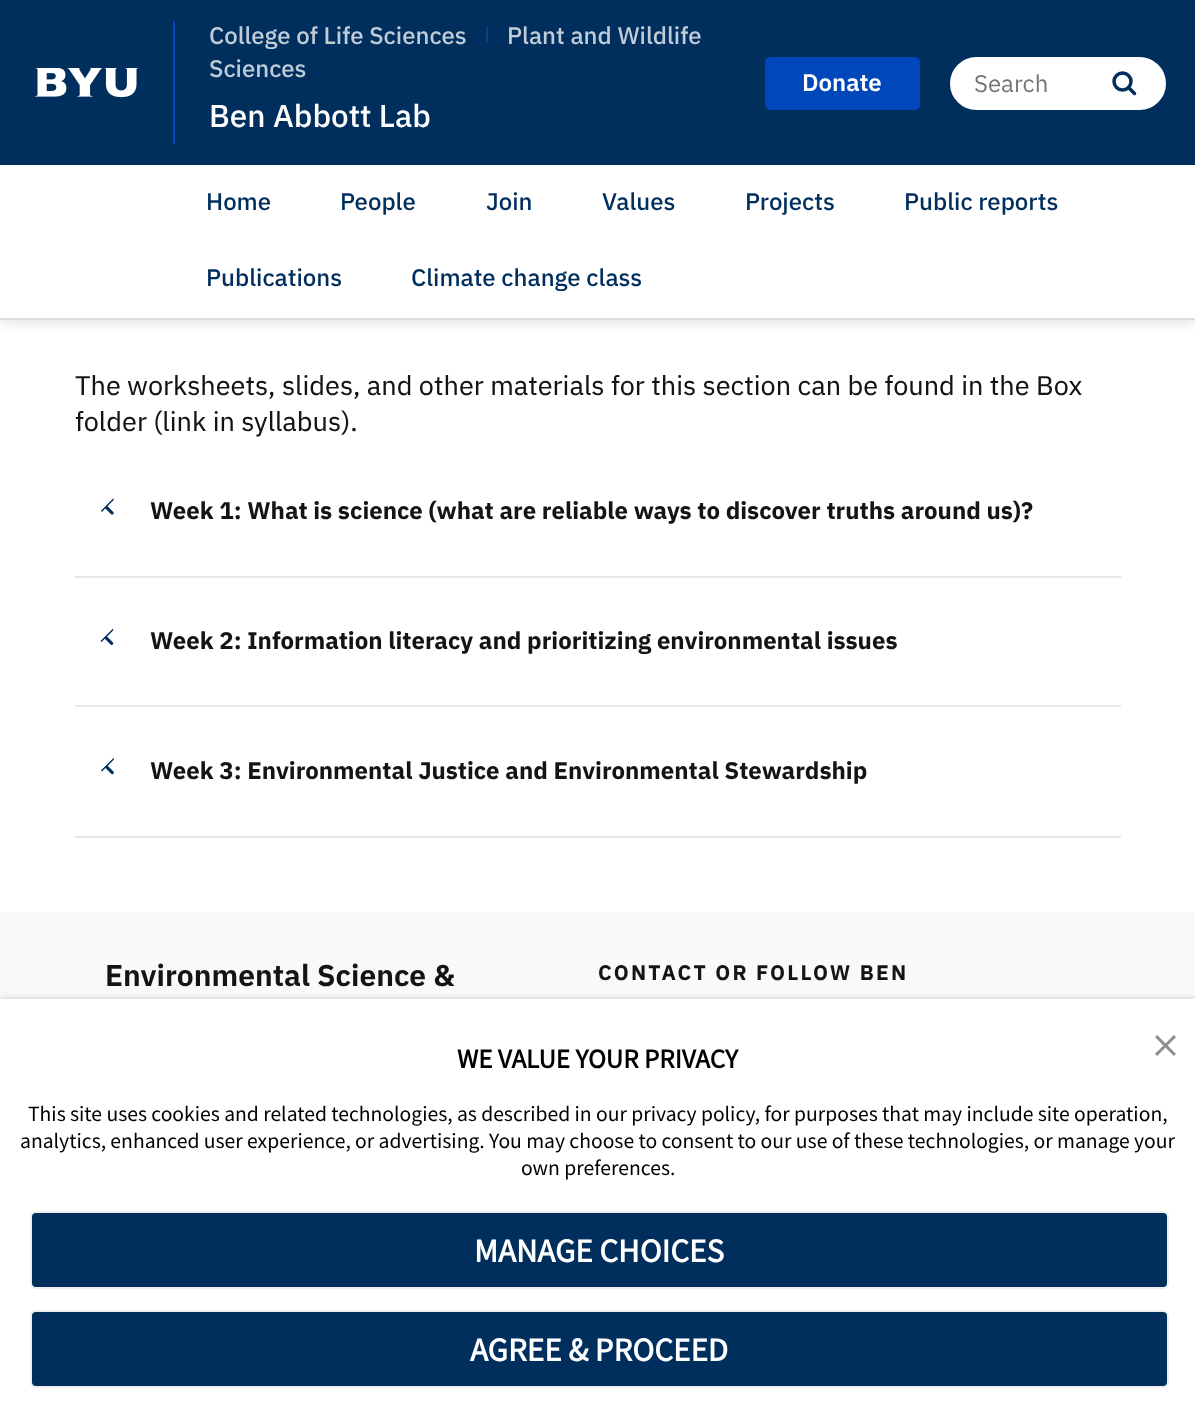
(async () => {
  const canvas = document.querySelector("canvas");
  canvas.width = 1195;
  canvas.height = 1401;
  const ctx = canvas.getContext("2d");
  ctx.miterLimit = 4;
  ctx.fontKerning = "normal";
  async function loadImage(src) {
    const img = new Image();
    img.src = src;
    await img.decode();
    return img;
  }
  let path;

  ctx.fillStyle = "#ffffff";
  ctx.fillRect(0, 0, 1195, 1401);
  ctx.fillStyle = "rgba(0, 0, 0, 0.16)";
  ctx.filter = "blur(7.5px)";
  ctx.beginPath();
  ctx.rect(0, 0, 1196, 320);
  ctx.fill();
  ctx.filter = "none";
  ctx.fillStyle = "#dddddd";
  ctx.fillRect(0, 318, 1195, 2);
  ctx.fillStyle = "#002e5d";
  ctx.fillRect(0, 0, 1195, 165);
  ctx.drawImage(await loadImage("img/1.png"), 35, 68, 104, 30);
  ctx.fillStyle = "#0047ba";
  ctx.fillRect(173, 21, 2, 123);
  ctx.beginPath();
  ctx.roundRect(766, 58, 153, 51, 4);
  ctx.fill();
  ctx.strokeStyle = "#0047ba";
  ctx.lineWidth = 2;
  ctx.stroke();
  ctx.fillStyle = "#ffffff";
  ctx.beginPath();
  ctx.roundRect(951, 58, 214, 51, 25.5);
  ctx.fill();
  ctx.strokeStyle = "#ffffff";
  ctx.stroke();
  ctx.beginPath();
  ctx.arc(1122.5, 81.5, 8.5, 0, Math.PI * 2);
  ctx.strokeStyle = "#002e5d";
  ctx.lineWidth = 3.5;
  ctx.stroke();
  path = new Path2D("M1128.5 87.5L1134.5 93.5");
  ctx.lineCap = "round";
  ctx.stroke(path);
  ctx.fillRect(0, 165, 1195, 153);
  ctx.fillStyle = "#e9e6e3";
  ctx.fillRect(75, 576, 1046, 2);
  ctx.drawImage(await loadImage("img/2.png"), 101, 498, 13, 17);
  ctx.fillRect(75, 705, 1046, 2);
  ctx.drawImage(await loadImage("img/3.png"), 100, 628, 14, 17);
  ctx.fillRect(75, 836, 1046, 2);
  ctx.drawImage(await loadImage("img/4.png"), 101, 758, 13, 17);
  ctx.fillStyle = "#f9f9f9";
  ctx.fillRect(0, 912, 1195, 87);
  ctx.fillStyle = "rgba(0, 0, 0, 0.2)";
  ctx.filter = "blur(3px)";
  ctx.beginPath();
  ctx.rect(0, 999, 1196, 402);
  ctx.fill();
  ctx.filter = "none";
  ctx.fillStyle = "#ffffff";
  ctx.fillRect(0, 999, 1195, 402);
  ctx.drawImage(await loadImage("img/5.png"), 1155, 1035, 21, 21);
  ctx.fillStyle = "#002e5d";
  ctx.beginPath();
  ctx.roundRect(31, 1212, 1137, 76, 5);
  ctx.fill();
  ctx.strokeStyle = "#eeeeee";
  ctx.lineWidth = 2;
  ctx.stroke();
  ctx.beginPath();
  ctx.roundRect(31, 1311, 1137, 76, 5);
  ctx.fill();
  ctx.stroke();
  ctx.font = "500 24px IBM Plex Sans";
  ctx.fillStyle = "#bfcbd7";
  ctx.fillText("College of Life Sciences", 209, 44);
  ctx.font = "500 17px IBM Plex Sans";
  ctx.fillStyle = "#0b4b8a";
  ctx.fillText("|", 484, 40);
  ctx.font = "500 24px IBM Plex Sans";
  ctx.fillStyle = "#bfcbd7";
  ctx.fillText("Plant and Wildlife", 507, 44);
  ctx.fillText("Sciences", 209, 77);
  ctx.font = "500 31.5px IBM Plex Sans";
  ctx.fillStyle = "#ffffff";
  ctx.fillText("Ben Abbott Lab", 209, 127);
  ctx.font = "600 24px 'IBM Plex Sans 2'";
  ctx.fillText("Donate", 802, 91);
  ctx.font = "24px 'IBM Plex Sans 2'";
  ctx.fillStyle = "#757575";
  ctx.fillText("Search", 974, 92);
  ctx.font = "500 24px IBM Plex Sans";
  ctx.fillStyle = "#002e5d";
  for (const [text, x, y] of [
    ["Home", 206, 210],
    ["People", 340, 210],
    ["Join", 486, 210],
    ["Values", 602, 210],
    ["Projects", 745, 210],
    ["Public reports", 904, 210],
    ["Publications", 206, 286],
    ["Climate change class", 411, 286],
  ]) {
    ctx.fillText(text, x, y);
  }
  ctx.font = "27px IBM Plex Sans";
  ctx.fillStyle = "#141414";
  ctx.fillText("The worksheets, slides, and other materials for this section can be found in the Box", 75, 395);
  ctx.fillText("folder (link in syllabus).", 75, 431);
  ctx.font = "bold 24px IBM Plex Sans";
  for (const [text, x, y] of [
    ["Week 1: What is science (what are reliable ways to discover truths around us)?", 150, 519],
    ["Week 2: Information literacy and prioritizing environmental issues", 150, 649],
    ["Week 3: Environmental Justice and Environmental Stewardship", 150, 779],
  ]) {
    ctx.fillText(text, x, y);
  }
  ctx.font = "600 30px IBM Plex Sans";
  ctx.fillText("Environmental Science &", 105, 986);
  ctx.letterSpacing = "2.25px";
  ctx.font = "bold 21px IBM Plex Sans";
  ctx.fillText("CONTACT OR FOLLOW BEN", 598, 980);
  ctx.letterSpacing = "0px";
  ctx.font = "bold 27px Source Sans Pro";
  ctx.fillStyle = "#000000";
  ctx.fillText("WE VALUE YOUR PRIVACY", 457, 1068);
  ctx.font = "21.6px Source Sans Pro";
  for (const [text, x, y] of [
    ["This site uses cookies and related technologies, as described in our privacy policy, for purposes that may include site operation,", 28, 1121],
    ["analytics, enhanced user experience, or advertising. You may choose to consent to our use of these technologies, or manage your", 20, 1148],
    ["own preferences.", 521, 1175],
  ]) {
    ctx.fillText(text, x, y);
  }
  ctx.font = "bold 33px Source Sans Pro";
  ctx.fillStyle = "#ffffff";
  ctx.fillText("MANAGE CHOICES", 474, 1262);
  ctx.fillText("AGREE & PROCEED", 470, 1361);
})();
